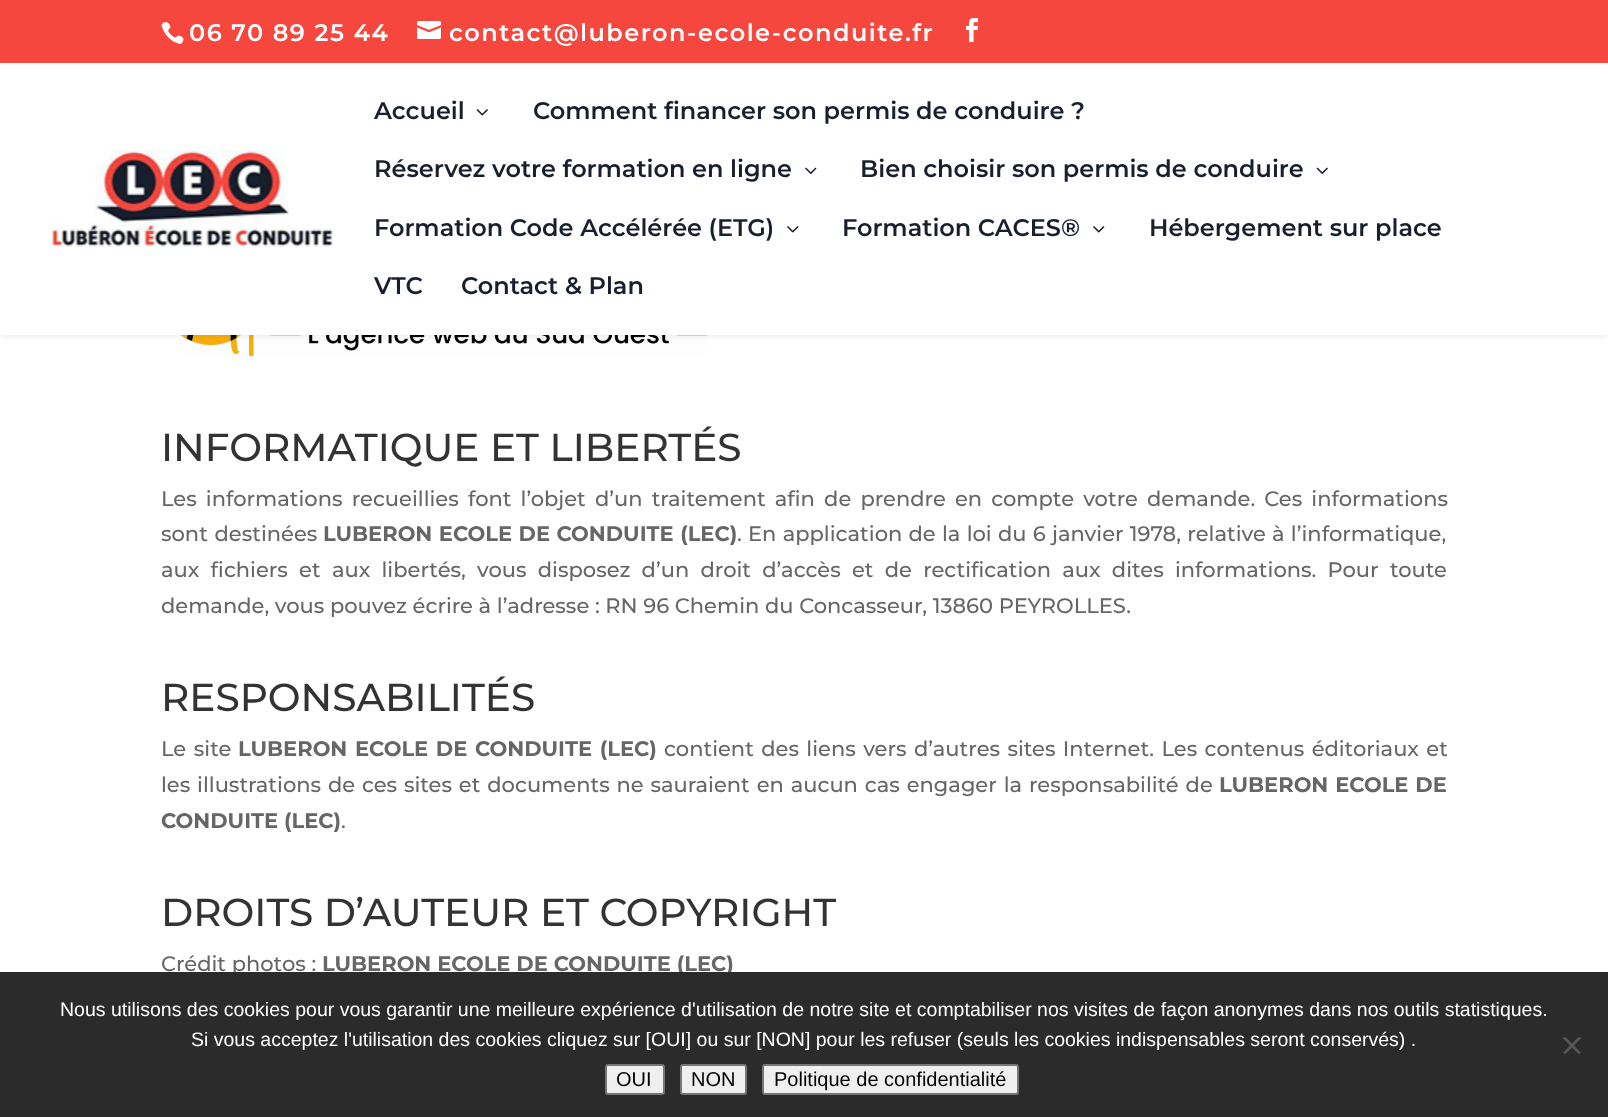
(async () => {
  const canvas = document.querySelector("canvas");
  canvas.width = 1608;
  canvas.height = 1117;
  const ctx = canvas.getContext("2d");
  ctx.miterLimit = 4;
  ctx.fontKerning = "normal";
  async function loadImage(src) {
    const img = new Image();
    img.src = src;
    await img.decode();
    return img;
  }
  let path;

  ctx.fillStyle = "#ffffff";
  ctx.fillRect(0, 0, 1608, 1117);
  ctx.drawImage(await loadImage("img/9.png"), 180, 335, 528, 22);
  ctx.fillStyle = "rgba(0, 0, 0, 0.1)";
  ctx.filter = "blur(5px)";
  ctx.beginPath();
  ctx.rect(0, 63, 1608, 272);
  ctx.fill();
  ctx.filter = "none";
  ctx.fillStyle = "#f5473e";
  ctx.fillRect(0, 0, 1608, 63);
  ctx.drawImage(await loadImage("img/1.png"), 161, 22, 23, 22);
  ctx.drawImage(await loadImage("img/2.png"), 417, 21, 24, 18);
  ctx.drawImage(await loadImage("img/3.png"), 966, 18, 13, 24);
  ctx.fillStyle = "#ffffff";
  ctx.fillRect(0, 63, 1608, 272);
  ctx.drawImage(await loadImage("img/4.png"), 50, 150, 283, 98);
  ctx.drawImage(await loadImage("img/5.png"), 476, 109, 12, 7);
  ctx.drawImage(await loadImage("img/6.png"), 805, 167, 12, 7);
  ctx.drawImage(await loadImage("img/7.png"), 1316, 167, 12, 7);
  ctx.drawImage(await loadImage("img/8.png"), 787, 226, 12, 7);
  ctx.drawImage(await loadImage("img/8.png"), 1093, 226, 12, 7);
  ctx.letterSpacing = "1.5px";
  ctx.font = "600 24px Montserrat";
  ctx.fillText("06 70 89 25 44", 189, 41);
  ctx.fillText("contact@luberon-ecole-conduite.fr", 449, 41);
  ctx.letterSpacing = "0px";
  ctx.fillStyle = "#191f2d";
  for (const [text, x, y] of [
    ["Accueil", 374, 119],
    ["Comment financer son permis de conduire ?", 533, 119],
    ["Réservez votre formation en ligne", 374, 177],
    ["Bien choisir son permis de conduire", 860, 177],
    ["Formation Code Accélérée (ETG)", 374, 236],
    ["Formation CACES®", 842, 236],
    ["Hébergement sur place", 1149, 236],
    ["VTC", 374, 294],
    ["Contact & Plan", 461, 294],
  ]) {
    ctx.fillText(text, x, y);
  }
  ctx.font = "500 39px Montserrat";
  ctx.fillStyle = "#333333";
  ctx.fillText("INFORMATIQUE ET LIBERTÉS", 161, 461);
  ctx.wordSpacing = "3.5px";
  ctx.font = "500 21px Montserrat";
  ctx.fillStyle = "#666666";
  ctx.fillText("Les informations recueillies font l’objet d’un traitement afin de prendre en compte votre demande. Ces informations", 161, 506);
  ctx.wordSpacing = "1px";
  ctx.fillText("sont destinées", 161, 541);
  ctx.wordSpacing = "0.6px";
  ctx.font = "bold 21px Montserrat";
  ctx.fillText("LUBERON ECOLE DE CONDUITE (LEC)", 323, 541);
  ctx.font = "500 21px Montserrat";
  ctx.fillText(". En application de la loi du 6 janvier 1978, relative à l’informatique,", 737, 541);
  ctx.wordSpacing = "5.6px";
  ctx.fillText("aux fichiers et aux libertés, vous disposez d’un droit d’accès et de rectification aux dites informations. Pour toute", 161, 577);
  ctx.wordSpacing = "0px";
  ctx.fillText("demande, vous pouvez écrire à l’adresse : RN 96 Chemin du Concasseur, 13860 PEYROLLES.", 161, 613);
  ctx.font = "500 39px Montserrat";
  ctx.fillStyle = "#333333";
  ctx.fillText("RESPONSABILITÉS", 161, 711);
  ctx.wordSpacing = "2px";
  ctx.font = "500 21px Montserrat";
  ctx.fillStyle = "#666666";
  ctx.fillText("Le site", 161, 756);
  ctx.wordSpacing = "1.75px";
  ctx.font = "bold 21px Montserrat";
  ctx.fillText("LUBERON ECOLE DE CONDUITE (LEC)", 238, 756);
  ctx.font = "500 21px Montserrat";
  ctx.fillText("contient des liens vers d’autres sites Internet. Les contenus éditoriaux et", 664, 756);
  ctx.wordSpacing = "1.2px";
  ctx.fillText("les illustrations de ces sites et documents ne sauraient en aucun cas engager la responsabilité de", 161, 792);
  ctx.wordSpacing = "1px";
  ctx.font = "bold 21px Montserrat";
  ctx.fillText("LUBERON ECOLE DE", 1219, 792);
  ctx.wordSpacing = "0px";
  ctx.fillText("CONDUITE (LEC)", 161, 828);
  ctx.font = "500 21px Montserrat";
  ctx.fillText(".", 341, 828);
  ctx.font = "500 39px Montserrat";
  ctx.fillStyle = "#333333";
  ctx.fillText("DROITS D’AUTEUR ET COPYRIGHT", 161, 926);
  ctx.font = "500 21px Montserrat";
  ctx.fillStyle = "#666666";
  ctx.fillText("Crédit photos :", 161, 971);
  ctx.font = "bold 21px Montserrat";
  ctx.fillText("LUBERON ECOLE DE CONDUITE (LEC)", 322, 971);
  ctx.fillStyle = "#2b2b2b";
  ctx.fillRect(0, 972, 1608, 145);
  ctx.font = "19.5px Liberation Sans";
  ctx.fillStyle = "#ffffff";
  ctx.fillText("Nous utilisons des cookies pour vous garantir une meilleure expérience d'utilisation de notre site et comptabiliser nos visites de façon anonymes dans nos outils statistiques.", 60, 1016);
  ctx.fillText("Si vous acceptez l'utilisation des cookies cliquez sur [OUI] ou sur [NON] pour les refuser (seuls les cookies indispensables seront conservés) .", 191, 1046);
  ctx.fillStyle = "#565656";
  path = new Path2D("M1579 1036.5L1581 1038.5L1565 1054.5L1563 1052.5Z");
  ctx.fill(path);
  path = new Path2D("M1563 1038.5L1565 1036.5L1581 1052.5L1579 1054.5Z");
  ctx.fill(path);
  ctx.fillStyle = "#efefef";
  ctx.beginPath();
  ctx.roundRect(606, 1065, 58, 29, 2);
  ctx.fill();
  ctx.strokeStyle = "#767676";
  ctx.lineWidth = 2;
  ctx.stroke();
  ctx.font = "20px Liberation Sans";
  ctx.fillStyle = "#000000";
  ctx.fillText("OUI", 616, 1086);
  ctx.fillStyle = "#efefef";
  ctx.beginPath();
  ctx.roundRect(681, 1065, 65, 29, 2);
  ctx.fill();
  ctx.stroke();
  ctx.fillStyle = "#000000";
  ctx.fillText("NON", 691, 1086);
  ctx.fillStyle = "#efefef";
  ctx.beginPath();
  ctx.roundRect(763, 1065, 255, 29, 2);
  ctx.fill();
  ctx.stroke();
  ctx.fillStyle = "#000000";
  ctx.fillText("Politique de confidentialité", 774, 1086);
})();
